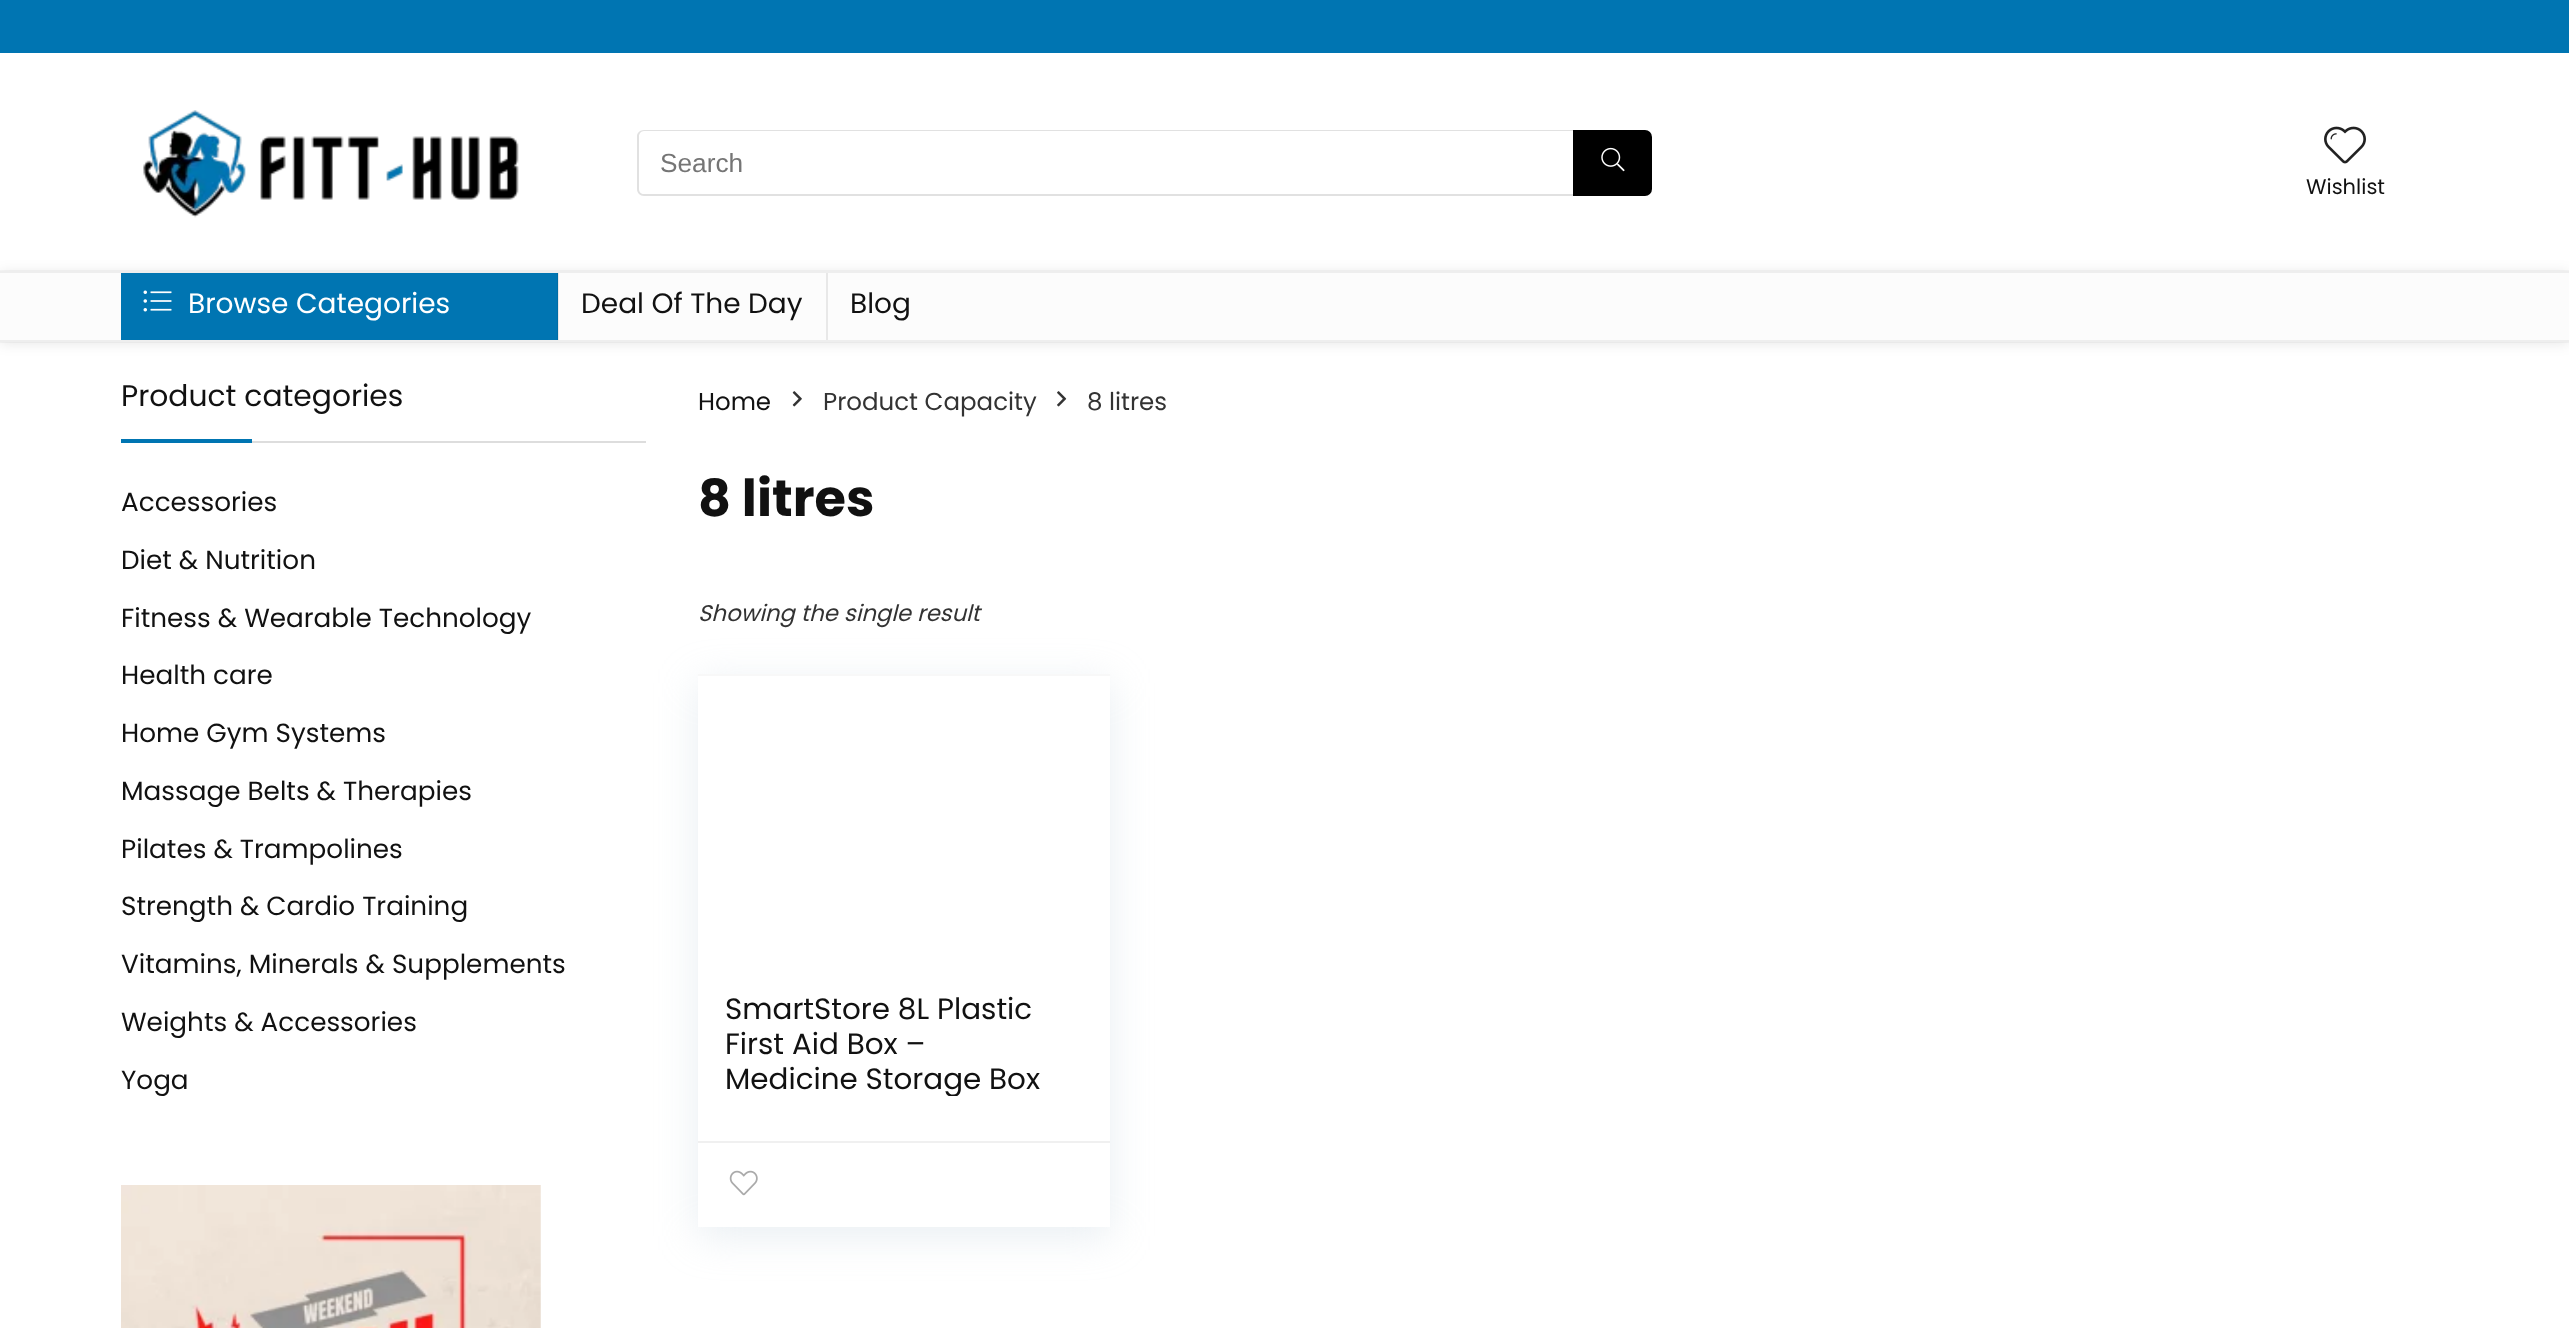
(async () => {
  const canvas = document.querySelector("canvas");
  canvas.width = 2569;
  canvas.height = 1328;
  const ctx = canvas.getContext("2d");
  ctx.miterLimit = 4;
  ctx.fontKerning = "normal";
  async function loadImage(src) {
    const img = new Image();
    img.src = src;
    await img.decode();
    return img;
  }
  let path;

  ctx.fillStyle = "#ffffff";
  ctx.fillRect(0, 0, 2569, 1328);
  ctx.fillStyle = "#0075b2";
  ctx.fillRect(0, 0, 2569, 53);
  ctx.drawImage(await loadImage("img/1.png"), 143, 110, 376, 108);
  ctx.fillStyle = "#e1e1e1";
  path = new Path2D("M644 130H1573V196H644C640 196 637 193 637 189V136C637 133 640 130 644 130ZM644 131H1573V194H644C641 194 639 192 639 189V136C639 134 641 131 644 131Z");
  ctx.fill(path, "evenodd");
  ctx.fillStyle = "#000000";
  ctx.beginPath();
  ctx.roundRect(1573, 130, 79, 66, [0, 7, 7, 0]);
  ctx.fill();
  ctx.drawImage(await loadImage("img/2.png"), 1601, 147, 24, 25);
  ctx.drawImage(await loadImage("img/3.png"), 2324, 126, 42, 38);
  ctx.strokeStyle = "#f7f7f7";
  ctx.lineWidth = 2;
  ctx.strokeRect(-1, 271, 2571, 71);
  ctx.fillStyle = "rgba(0, 0, 0, 0.1)";
  ctx.filter = "blur(7px)";
  ctx.beginPath();
  ctx.rect(0, 273, 2569, 70);
  ctx.fill();
  ctx.filter = "none";
  for (const [x, y, w, h, color] of [
    [0, 273, 2569, 67, "#fcfcfc"],
    [558, 273, 1, 67, "#e8e8e8"],
    [0, 271, 2569, 2, "#eeeeee"],
    [0, 340, 2569, 2, "#eeeeee"],
    [121, 273, 436, 67, "#0075b2"],
    [557, 273, 1, 67, "#006ca4"],
  ]) {
    ctx.fillStyle = color;
    ctx.fillRect(x, y, w, h);
  }
  ctx.drawImage(await loadImage("img/4.png"), 143, 290, 29, 22);
  for (const [x, y, w, h, color] of [
    [826, 273, 2, 67, "#e8e8e8"],
    [252, 441, 394, 2, "#dddddd"],
    [121, 439, 131, 4, "#0075b2"],
  ]) {
    ctx.fillStyle = color;
    ctx.fillRect(x, y, w, h);
  }
  ctx.drawImage(await loadImage("img/5.png"), 121, 1185, 420, 143);
  ctx.drawImage(await loadImage("img/6.png"), 792, 391, 10, 16);
  ctx.drawImage(await loadImage("img/7.png"), 1057, 391, 10, 16);
  ctx.fillStyle = "rgba(188, 207, 219, 0.35)";
  ctx.filter = "blur(20px)";
  ctx.beginPath();
  ctx.rect(698, 683, 412, 553);
  ctx.fill();
  ctx.filter = "none";
  for (const [x, y, w, h, color] of [
    [698, 676, 412, 551, "#ffffff"],
    [698, 674, 412, 2, "#f8f8f8"],
    [698, 1141, 412, 2, "#f0f0f0"],
  ]) {
    ctx.fillStyle = color;
    ctx.fillRect(x, y, w, h);
  }
  ctx.drawImage(await loadImage("img/8.png"), 729, 1170, 29, 26);
  ctx.font = "26.25px Liberation Sans";
  ctx.fillStyle = "#757575";
  ctx.fillText("Search", 660, 172);
  ctx.font = "21px Poppins";
  ctx.fillStyle = "#111111";
  ctx.fillText("Wishlist", 2306, 194);
  ctx.font = "28px Poppins";
  ctx.fillStyle = "#ffffff";
  ctx.fillText("Browse Categories", 188, 313);
  ctx.fillStyle = "#111111";
  ctx.fillText("Deal Of The Day", 581, 313);
  ctx.fillText("Blog", 850, 313);
  ctx.font = "29.75px Poppins";
  ctx.fillText("Product categories", 121, 406);
  ctx.font = "26.25px Poppins";
  for (const [text, x, y] of [
    ["Accessories", 121, 511],
    ["Diet & Nutrition", 121, 569],
    ["Fitness & Wearable Technology", 121, 627],
    ["Health care", 121, 684],
    ["Home Gym Systems", 121, 742],
    ["Massage Belts & Therapies", 121, 800],
    ["Pilates & Trampolines", 121, 858],
    ["Strength & Cardio Training", 121, 915],
    ["Vitamins, Minerals & Supplements", 121, 973],
    ["Weights & Accessories", 121, 1031],
    ["Yoga", 121, 1089],
  ]) {
    ctx.fillText(text, x, y);
  }
  ctx.font = "24.5px Poppins";
  ctx.fillText("Home", 698, 410);
  ctx.fillStyle = "#333333";
  ctx.fillText("Product Capacity", 823, 410);
  ctx.fillText("8 litres", 1087, 410);
  ctx.font = "bold 51px Poppins";
  ctx.fillStyle = "#111111";
  ctx.fillText("8 litres", 698, 516);
  ctx.font = "italic 22.75px Poppins";
  ctx.fillStyle = "#333333";
  ctx.fillText("Showing the single result", 698, 621);
  ctx.font = "29.4px Poppins";
  ctx.fillStyle = "#111111";
  ctx.fillText("SmartStore 8L Plastic", 725, 1019);
  ctx.fillText("First Aid Box –", 725, 1054);
  ctx.save();
  ctx.beginPath();
  ctx.rect(725, 991, 332, 105);
  ctx.clip();
  ctx.fillText("Medicine Storage Box", 725, 1089);
  ctx.restore();
})();
